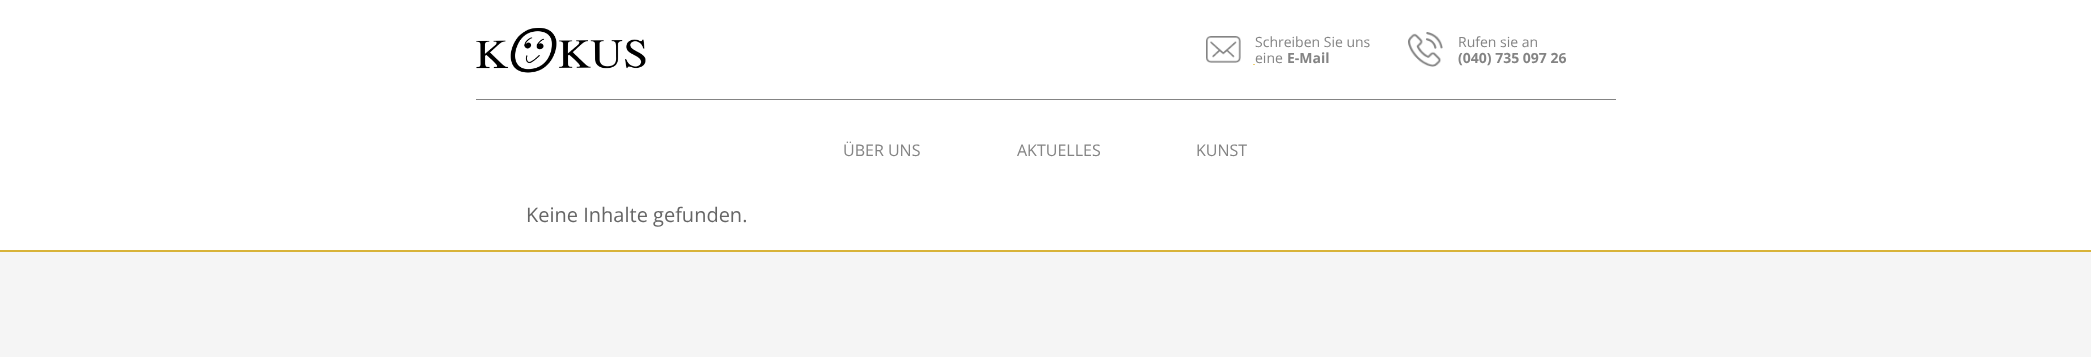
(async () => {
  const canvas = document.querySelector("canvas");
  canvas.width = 2091;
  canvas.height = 357;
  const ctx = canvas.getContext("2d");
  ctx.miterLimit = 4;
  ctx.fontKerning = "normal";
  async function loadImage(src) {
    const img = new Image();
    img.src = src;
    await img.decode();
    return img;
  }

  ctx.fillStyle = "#ffffff";
  ctx.fillRect(0, 0, 2091, 357);
  ctx.drawImage(await loadImage("img/1.png"), 476, 28, 170, 45);
  ctx.drawImage(await loadImage("img/2.png"), 1206, 36, 35, 27);
  ctx.fillStyle = "#edd175";
  ctx.fillRect(1253, 64, 2, 1);
  ctx.drawImage(await loadImage("img/3.png"), 1408, 32, 35, 35);
  for (const [x, y, w, h, color] of [
    [476, 99, 1140, 1, "#848484"],
    [0, 252, 2091, 105, "#f5f5f5"],
    [0, 250, 2091, 2, "#d8b339"],
  ]) {
    ctx.fillStyle = color;
    ctx.fillRect(x, y, w, h);
  }
  ctx.font = "14px Open Sans";
  ctx.fillStyle = "#848484";
  ctx.fillText("Schreiben Sie uns", 1255, 47);
  ctx.fillText("eine", 1255, 63);
  ctx.font = "bold 14px Open Sans";
  ctx.fillText("E-Mail", 1287, 63);
  ctx.font = "14px Open Sans";
  ctx.fillText("Rufen sie an", 1458, 47);
  ctx.font = "bold 14px Open Sans";
  ctx.fillText("(040) 735 097 26", 1458, 63);
  ctx.font = "16px Open Sans";
  for (const [text, x, y] of [
    ["ÜBER UNS", 843, 156],
    ["AKTUELLES", 1017, 156],
    ["KUNST", 1196, 156],
  ]) {
    ctx.fillText(text, x, y);
  }
  ctx.font = "20px Open Sans";
  ctx.fillStyle = "#666666";
  ctx.fillText("Keine Inhalte gefunden.", 526, 222);
})();
